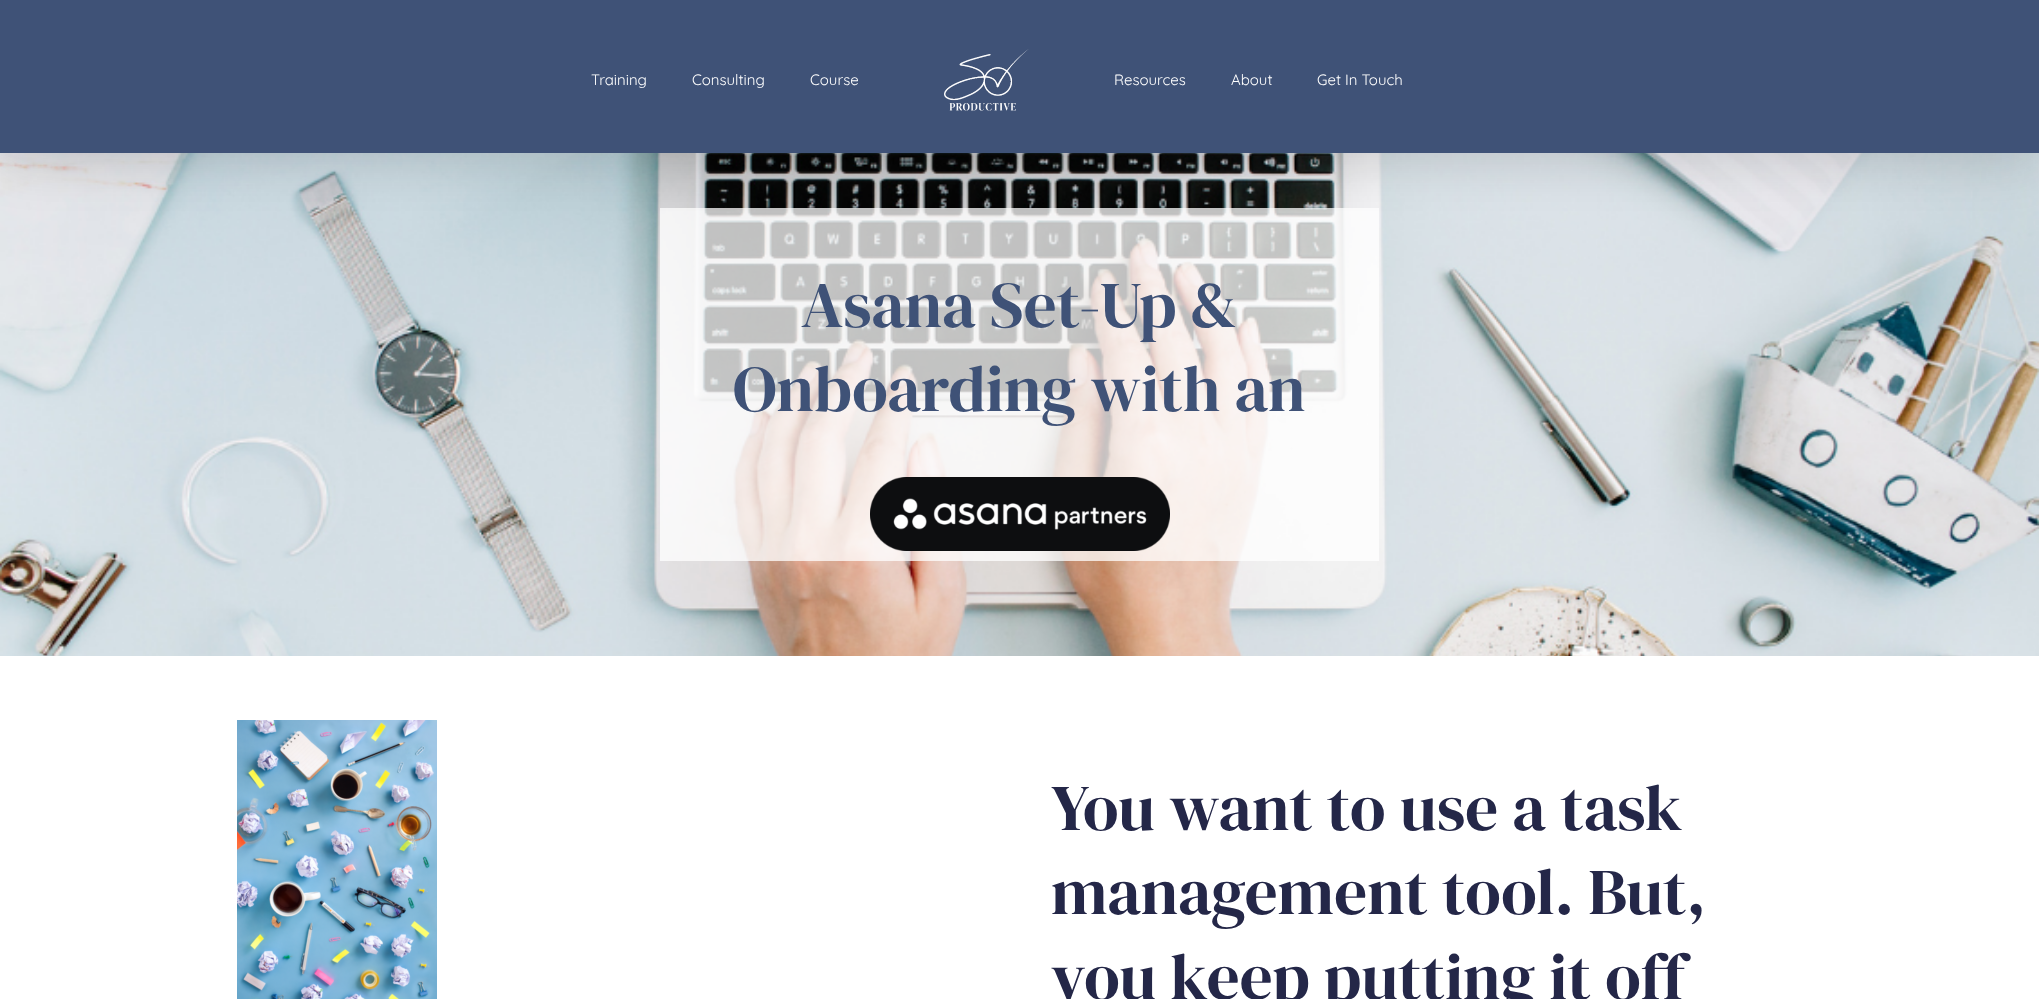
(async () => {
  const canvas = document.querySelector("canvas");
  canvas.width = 2039;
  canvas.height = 999;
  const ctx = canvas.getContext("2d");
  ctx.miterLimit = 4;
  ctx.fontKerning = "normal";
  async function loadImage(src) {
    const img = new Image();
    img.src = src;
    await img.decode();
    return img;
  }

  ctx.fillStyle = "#ffffff";
  ctx.fillRect(0, 0, 2039, 999);
  ctx.drawImage(await loadImage("img/2.png"), 0, 153, 2039, 503);
  ctx.fillStyle = "rgba(255, 255, 255, 0.75)";
  ctx.fillRect(660, 208, 719, 353);
  ctx.fillStyle = "rgba(0, 0, 0, 0.14)";
  ctx.filter = "blur(25px)";
  ctx.beginPath();
  ctx.rect(2, 12, 2035, 149);
  ctx.fill();
  ctx.filter = "none";
  ctx.fillStyle = "#3f5277";
  ctx.fillRect(0, 0, 2039, 153);
  ctx.drawImage(await loadImage("img/1.png"), 944, 49, 85, 62);
  ctx.drawImage(await loadImage("img/3.png"), 870, 477, 300, 74);
  ctx.drawImage(await loadImage("img/4.png"), 237, 720, 200, 279);
  ctx.font = "15px Quicksand";
  ctx.fillStyle = "#ffffff";
  for (const [text, x, y] of [
    ["Training", 591, 85],
    ["Consulting", 692, 85],
    ["Course", 810, 85],
    ["Resources", 1114, 85],
    ["About", 1231, 85],
    ["Get In Touch", 1317, 85],
  ]) {
    ctx.fillText(text, x, y);
  }
  ctx.font = "65px DM Serif Display";
  ctx.fillStyle = "#3f5277";
  ctx.fillText("Asana Set-Up &", 801, 327);
  ctx.fillText("Onboarding with an", 733, 411);
  ctx.fillStyle = "#242748";
  for (const [text, x, y] of [
    ["You want to use a task", 1051, 830],
    ["management tool. But,", 1051, 914],
    ["you keep putting it off", 1051, 999],
  ]) {
    ctx.fillText(text, x, y);
  }
})();
